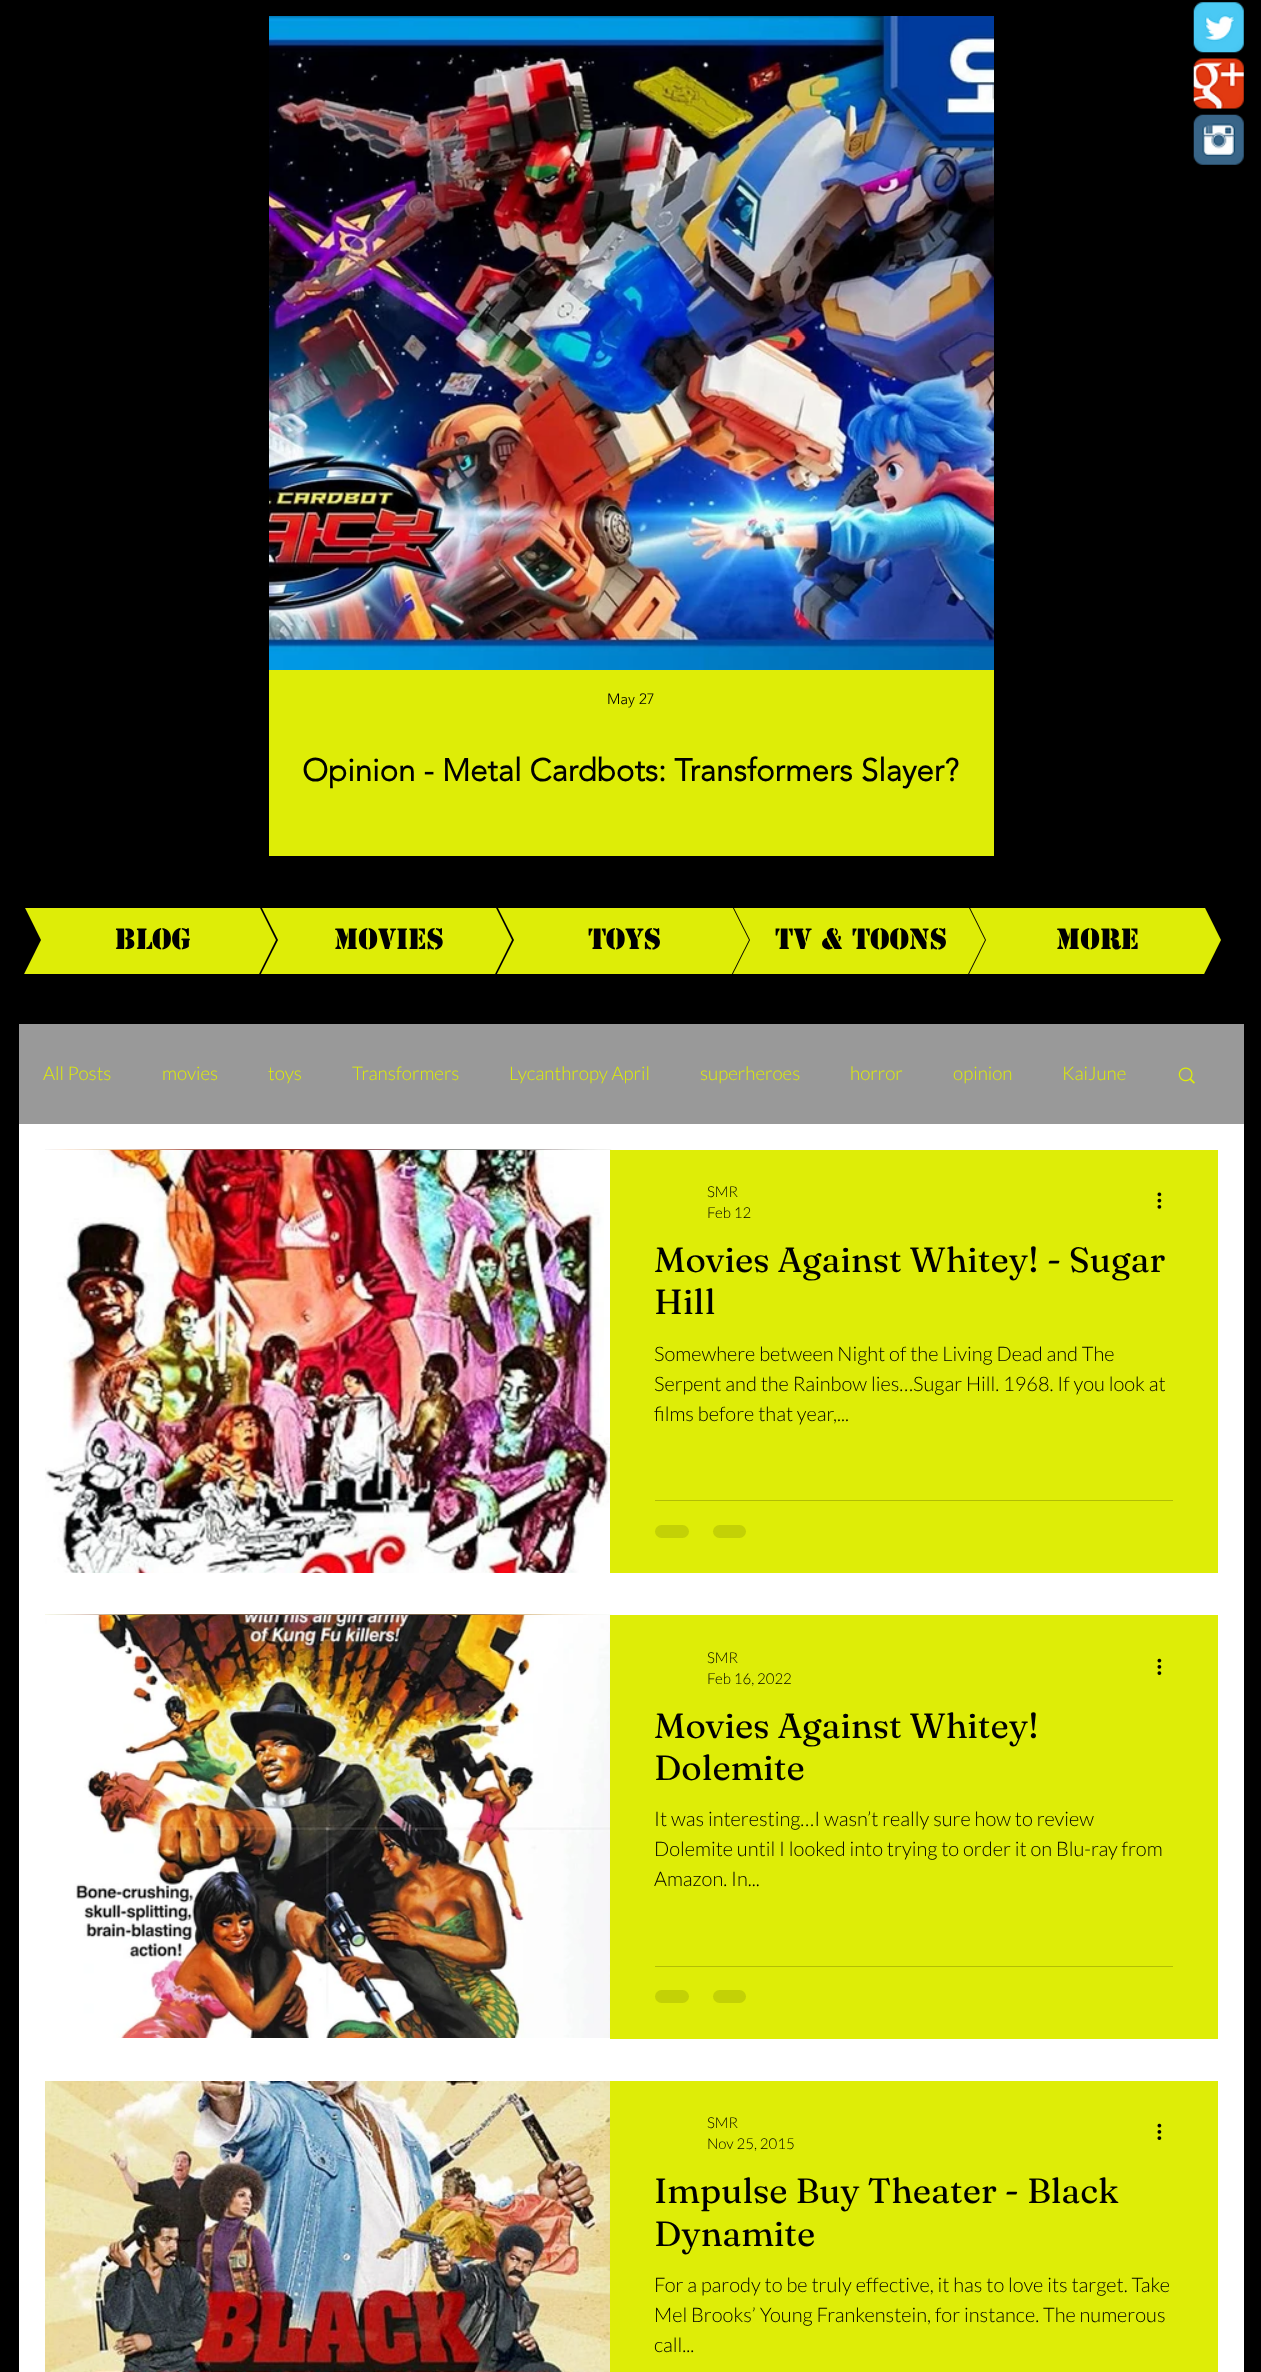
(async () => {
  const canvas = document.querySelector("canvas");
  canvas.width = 1261;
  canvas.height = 2372;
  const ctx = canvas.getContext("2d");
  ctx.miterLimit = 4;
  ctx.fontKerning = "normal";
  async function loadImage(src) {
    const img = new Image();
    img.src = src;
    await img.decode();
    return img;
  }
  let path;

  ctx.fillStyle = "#000000";
  ctx.fillRect(0, 0, 1261, 2372);
  ctx.drawImage(await loadImage("img/1.png"), 1193, 2, 51, 51);
  ctx.drawImage(await loadImage("img/2.png"), 1193, 58, 51, 51);
  ctx.drawImage(await loadImage("img/3.png"), 1193, 114, 51, 51);
  ctx.drawImage(await loadImage("img/4.png"), 269, 16, 725, 654);
  ctx.fillStyle = "#deed07";
  ctx.fillRect(269, 670, 725, 186);
  ctx.save();
  ctx.beginPath();
  ctx.rect(0, 908, 41, 66);
  ctx.clip();
  path = new Path2D("M-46 765H41V940Z");
  ctx.fill(path);
  path = new Path2D("M41 1115H-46L41 940Z");
  ctx.fill(path);
  ctx.restore();
  ctx.fillRect(41, 908, 148, 66);
  ctx.save();
  ctx.beginPath();
  ctx.rect(189, 908, 87, 66);
  ctx.clip();
  path = new Path2D("M276 940H189V765Z");
  ctx.fill(path);
  path = new Path2D("M189 940H276L189 1115Z");
  ctx.fill(path);
  ctx.restore();
  ctx.save();
  ctx.beginPath();
  ctx.rect(190, 908, 88, 66);
  ctx.clip();
  path = new Path2D("M190 765H278V940Z");
  ctx.fill(path);
  path = new Path2D("M278 1115H190L278 940Z");
  ctx.fill(path);
  ctx.restore();
  ctx.fillRect(278, 908, 147, 66);
  ctx.save();
  ctx.beginPath();
  ctx.rect(425, 908, 88, 66);
  ctx.clip();
  path = new Path2D("M512 940H425V765Z");
  ctx.fill(path);
  path = new Path2D("M425 940H512L425 1115Z");
  ctx.fill(path);
  ctx.restore();
  ctx.save();
  ctx.beginPath();
  ctx.rect(426, 908, 88, 66);
  ctx.clip();
  path = new Path2D("M426 765H514V940Z");
  ctx.fill(path);
  path = new Path2D("M514 1115H426L514 940Z");
  ctx.fill(path);
  ctx.restore();
  ctx.fillRect(514, 908, 147, 66);
  ctx.save();
  ctx.beginPath();
  ctx.rect(661, 908, 88, 66);
  ctx.clip();
  path = new Path2D("M749 940H661V765Z");
  ctx.fill(path);
  path = new Path2D("M661 940H749L661 1115Z");
  ctx.fill(path);
  ctx.restore();
  ctx.save();
  ctx.beginPath();
  ctx.rect(663, 908, 87, 66);
  ctx.clip();
  path = new Path2D("M662 765H750V940Z");
  ctx.fill(path);
  path = new Path2D("M750 1115H662L750 940Z");
  ctx.fill(path);
  ctx.restore();
  ctx.fillRect(750, 908, 148, 66);
  ctx.save();
  ctx.beginPath();
  ctx.rect(898, 908, 87, 66);
  ctx.clip();
  path = new Path2D("M985 940H898V765Z");
  ctx.fill(path);
  path = new Path2D("M898 940H985L898 1115Z");
  ctx.fill(path);
  ctx.restore();
  ctx.save();
  ctx.beginPath();
  ctx.rect(899, 908, 87, 66);
  ctx.clip();
  path = new Path2D("M899 765H986V940Z");
  ctx.fill(path);
  path = new Path2D("M986 1115H899L986 940Z");
  ctx.fill(path);
  ctx.restore();
  ctx.fillRect(986, 908, 148, 66);
  ctx.save();
  ctx.beginPath();
  ctx.rect(1134, 908, 87, 66);
  ctx.clip();
  path = new Path2D("M1221 940H1134V765Z");
  ctx.fill(path);
  path = new Path2D("M1134 940H1221L1134 1115Z");
  ctx.fill(path);
  ctx.restore();
  ctx.fillStyle = "#ffffff";
  ctx.fillRect(19, 1124, 1225, 1248);
  ctx.fillStyle = "#999999";
  ctx.fillRect(19, 1024, 1225, 100);
  ctx.drawImage(await loadImage("img/5.png"), 1178, 1067, 17, 17);
  ctx.drawImage(await loadImage("img/6.png"), 45, 1149, 567, 1);
  ctx.drawImage(await loadImage("img/7.png"), 45, 1150, 565, 423);
  ctx.fillStyle = "#deed07";
  ctx.fillRect(610, 1150, 608, 423);
  ctx.drawImage(await loadImage("img/8.png"), 1157, 1192, 5, 17);
  ctx.fillStyle = "#b2be06";
  ctx.fillRect(655, 1500, 518, 1);
  ctx.fillStyle = "#c3d106";
  ctx.beginPath();
  ctx.roundRect(655, 1525, 34, 13, 6.5);
  ctx.fill();
  ctx.beginPath();
  ctx.roundRect(713, 1525, 33, 13, 6.5);
  ctx.fill();
  ctx.drawImage(await loadImage("img/9.png"), 45, 1614, 567, 1);
  ctx.drawImage(await loadImage("img/10.png"), 45, 1615, 565, 423);
  ctx.fillStyle = "#deed07";
  ctx.fillRect(610, 1615, 608, 424);
  ctx.drawImage(await loadImage("img/11.png"), 1157, 1658, 5, 17);
  ctx.fillStyle = "#b2be06";
  ctx.fillRect(655, 1966, 518, 1);
  ctx.fillStyle = "#c3d106";
  ctx.beginPath();
  ctx.roundRect(655, 1990, 34, 13, 6.5);
  ctx.fill();
  ctx.beginPath();
  ctx.roundRect(713, 1990, 33, 13, 6.5);
  ctx.fill();
  ctx.drawImage(await loadImage("img/12.png"), 45, 2081, 565, 291);
  ctx.fillStyle = "#deed07";
  ctx.fillRect(610, 2081, 608, 291);
  ctx.drawImage(await loadImage("img/11.png"), 1157, 2123, 5, 17);
  ctx.font = "300 15px 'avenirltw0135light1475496'";
  ctx.fillStyle = "#000000";
  ctx.fillText("May 27", 607, 704);
  ctx.font = "bold 31.25px 'avenirltw0135light1475496'";
  ctx.fillText("Opinion - Metal Cardbots: Transformers Slayer?", 302, 781);
  ctx.font = "bold 27.5px 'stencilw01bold'";
  for (const [text, x, y] of [
    ["Blog", 115, 949],
    ["Movies", 334, 949],
    ["Toys", 588, 949],
    ["TV & Toons", 775, 949],
    ["More", 1056, 949],
  ]) {
    ctx.fillText(text, x, y);
  }
  ctx.font = "300 18.75px Lato";
  ctx.fillStyle = "#deed07";
  for (const [text, x, y] of [
    ["All Posts", 43, 1080],
    ["movies", 162, 1080],
    ["toys", 268, 1080],
    ["Transformers", 352, 1080],
    ["Lycanthropy April", 509, 1080],
    ["superheroes", 700, 1080],
    ["horror", 850, 1080],
    ["opinion", 953, 1080],
    ["KaiJune", 1062, 1080],
  ]) {
    ctx.fillText(text, x, y);
  }
  ctx.font = "300 15px Lato";
  ctx.fillStyle = "#000000";
  ctx.fillText("SMR", 707, 1197);
  ctx.fillText("Feb 12", 707, 1218);
  ctx.font = "35px Fraunces";
  ctx.fillText("Movies Against Whitey! - Sugar", 654, 1272);
  ctx.fillText("Hill", 654, 1314);
  ctx.font = "300 20px Lato";
  for (const [text, x, y] of [
    ["Somewhere between Night of the Living Dead and The", 654, 1361],
    ["Serpent and the Rainbow lies…Sugar Hill. 1968. If you look at", 654, 1391],
    ["films before that year,...", 654, 1421],
  ]) {
    ctx.fillText(text, x, y);
  }
  ctx.font = "300 15px Lato";
  ctx.fillText("SMR", 707, 1663);
  ctx.fillText("Feb 16, 2022", 707, 1684);
  ctx.font = "35px Fraunces";
  ctx.fillText("Movies Against Whitey!", 654, 1738);
  ctx.fillText("Dolemite", 654, 1780);
  ctx.font = "300 20px Lato";
  for (const [text, x, y] of [
    ["It was interesting…I wasn’t really sure how to review", 654, 1826],
    ["Dolemite until I looked into trying to order it on Blu-ray from", 654, 1856],
    ["Amazon. In...", 654, 1886],
  ]) {
    ctx.fillText(text, x, y);
  }
  ctx.font = "300 15px Lato";
  ctx.fillText("SMR", 707, 2128);
  ctx.fillText("Nov 25, 2015", 707, 2149);
  ctx.font = "35px Fraunces";
  ctx.fillText("Impulse Buy Theater - Black", 654, 2203);
  ctx.fillText("Dynamite", 654, 2246);
  ctx.font = "300 20px Lato";
  for (const [text, x, y] of [
    ["For a parody to be truly effective, it has to love its target. Take", 654, 2292],
    ["Mel Brooks’ Young Frankenstein, for instance. The numerous", 654, 2322],
    ["call...", 654, 2352],
  ]) {
    ctx.fillText(text, x, y);
  }
})();
